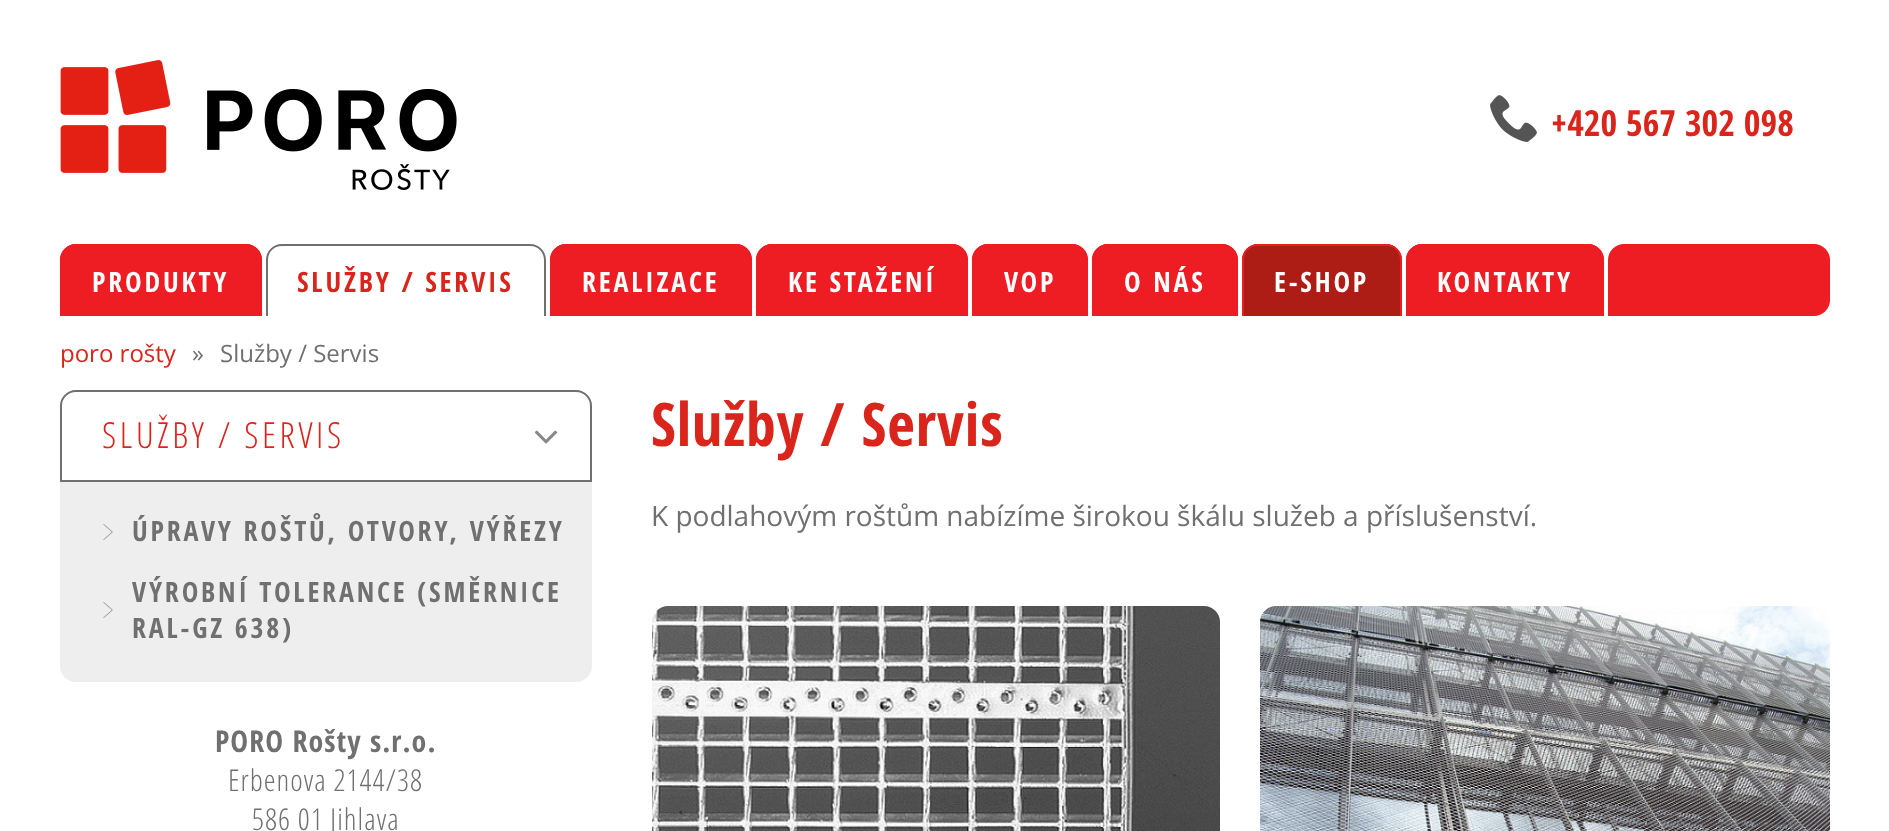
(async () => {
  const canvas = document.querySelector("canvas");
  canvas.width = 1889;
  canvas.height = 831;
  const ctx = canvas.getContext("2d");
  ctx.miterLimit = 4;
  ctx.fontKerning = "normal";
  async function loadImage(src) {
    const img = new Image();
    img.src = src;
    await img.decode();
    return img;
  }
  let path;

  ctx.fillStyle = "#ffffff";
  ctx.fillRect(0, 0, 1889, 831);
  ctx.drawImage(await loadImage("img/1.png"), 60, 60, 397, 130);
  ctx.drawImage(await loadImage("img/2.png"), 1490, 95, 47, 47);
  ctx.fillStyle = "#ee1c23";
  ctx.beginPath();
  ctx.roundRect(60, 244, 1770, 72, 16);
  ctx.fill();
  ctx.fillStyle = "#ffffff";
  ctx.fillRect(60, 244, 1564, 72);
  ctx.fillStyle = "#ee1c23";
  ctx.beginPath();
  ctx.roundRect(60, 244, 202, 72, [16, 16, 0, 0]);
  ctx.fill();
  path = new Path2D("M76 244H246C255 244 262 251 262 260V316H60V260C60 251 67 244 76 244ZM76 246H246C254 246 260 252 260 260V316H62V260C62 252 68 246 76 246Z");
  ctx.fill(path, "evenodd");
  ctx.fillStyle = "#707070";
  path = new Path2D("M282 244H530C539 244 546 251 546 260V316H266V260C266 251 273 244 282 244ZM282 246H530C538 246 544 252 544 260V316H268V260C268 252 274 246 282 246Z");
  ctx.fill(path, "evenodd");
  ctx.fillStyle = "#ee1c23";
  ctx.beginPath();
  ctx.roundRect(550, 244, 202, 72, [16, 16, 0, 0]);
  ctx.fill();
  path = new Path2D("M566 244H736C745 244 752 251 752 260V316H550V260C550 251 557 244 566 244ZM566 246H736C744 246 750 252 750 260V316H552V260C552 252 558 246 566 246Z");
  ctx.fill(path, "evenodd");
  ctx.beginPath();
  ctx.roundRect(756, 244, 212, 72, [16, 16, 0, 0]);
  ctx.fill();
  path = new Path2D("M772 244H952C961 244 968 251 968 260V316H756V260C756 251 763 244 772 244ZM772 246H952C960 246 966 252 966 260V316H758V260C758 252 764 246 772 246Z");
  ctx.fill(path, "evenodd");
  ctx.beginPath();
  ctx.roundRect(972, 244, 116, 72, [16, 16, 0, 0]);
  ctx.fill();
  path = new Path2D("M988 244H1072C1081 244 1088 251 1088 260V316H972V260C972 251 979 244 988 244ZM988 246H1072C1080 246 1086 252 1086 260V316H974V260C974 252 980 246 988 246Z");
  ctx.fill(path, "evenodd");
  ctx.beginPath();
  ctx.roundRect(1092, 244, 146, 72, [16, 16, 0, 0]);
  ctx.fill();
  path = new Path2D("M1108 244H1222C1231 244 1238 251 1238 260V316H1092V260C1092 251 1099 244 1108 244ZM1108 246H1222C1230 246 1236 252 1236 260V316H1094V260C1094 252 1100 246 1108 246Z");
  ctx.fill(path, "evenodd");
  ctx.fillStyle = "#ad1d16";
  ctx.beginPath();
  ctx.roundRect(1242, 244, 160, 72, [16, 16, 0, 0]);
  ctx.fill();
  ctx.fillStyle = "#ee1c23";
  path = new Path2D("M1258 244H1386C1395 244 1402 251 1402 260V316H1242V260C1242 251 1249 244 1258 244ZM1258 246H1386C1394 246 1400 252 1400 260V316H1244V260C1244 252 1250 246 1258 246Z");
  ctx.fill(path, "evenodd");
  ctx.beginPath();
  ctx.roundRect(1406, 244, 198, 72, [16, 16, 0, 0]);
  ctx.fill();
  path = new Path2D("M1422 244H1588C1597 244 1604 251 1604 260V316H1406V260C1406 251 1413 244 1422 244ZM1422 246H1588C1596 246 1602 252 1602 260V316H1408V260C1408 252 1414 246 1422 246Z");
  ctx.fill(path, "evenodd");
  ctx.beginPath();
  ctx.roundRect(1608, 244, 20, 72, [16, 0, 0, 0]);
  ctx.fill();
  ctx.fillStyle = "#eeeeee";
  ctx.beginPath();
  ctx.roundRect(60, 390, 532, 292, 16);
  ctx.fill();
  ctx.fillStyle = "#ffffff";
  ctx.beginPath();
  ctx.roundRect(61, 391, 530, 90, [15, 15, 0, 0]);
  ctx.fill();
  ctx.strokeStyle = "#707070";
  ctx.lineWidth = 2;
  ctx.stroke();
  ctx.drawImage(await loadImage("img/3.png"), 534, 430, 24, 14);
  ctx.drawImage(await loadImage("img/4.png"), 103, 524, 10, 16);
  ctx.drawImage(await loadImage("img/4.png"), 103, 602, 10, 16);
  ctx.drawImage(await loadImage("img/5.png"), 652, 606, 568, 225);
  ctx.drawImage(await loadImage("img/6.png"), 1260, 606, 570, 225);
  ctx.font = "bold 36px Open Sans Condensed";
  ctx.fillStyle = "#da251c";
  ctx.fillText("+420 567 302 098", 1551, 136);
  ctx.letterSpacing = "2.8px";
  ctx.font = "bold 28px Open Sans Condensed";
  ctx.fillStyle = "#ffffff";
  ctx.fillText("PRODUKTY", 92, 292);
  ctx.fillStyle = "#da251c";
  ctx.fillText("SLUŽBY / SERVIS", 297, 292);
  ctx.fillStyle = "#ffffff";
  for (const [text, x, y] of [
    ["REALIZACE", 582, 292],
    ["KE STAŽENÍ", 788, 292],
    ["VOP", 1004, 292],
    ["O NÁS", 1124, 292],
    ["E-SHOP", 1274, 292],
    ["KONTAKTY", 1437, 292],
  ]) {
    ctx.fillText(text, x, y);
  }
  ctx.letterSpacing = "0px";
  ctx.font = "24px Open Sans";
  ctx.fillStyle = "#da251c";
  ctx.fillText("poro rošty", 60, 362);
  ctx.fillStyle = "#707070";
  ctx.fillText("»", 192, 362);
  ctx.fillText("Služby / Servis", 220, 362);
  ctx.letterSpacing = "3.6px";
  ctx.font = "300 36px Open Sans Condensed";
  ctx.fillStyle = "#da251c";
  ctx.fillText("SLUŽBY / SERVIS", 102, 448);
  ctx.letterSpacing = "2.8px";
  ctx.font = "bold 28px Open Sans Condensed";
  ctx.fillStyle = "#707070";
  for (const [text, x, y] of [
    ["ÚPRAVY ROŠTŮ, OTVORY, VÝŘEZY", 132, 541],
    ["VÝROBNÍ TOLERANCE (SMĚRNICE", 132, 602],
    ["RAL-GZ 638)", 132, 638],
  ]) {
    ctx.fillText(text, x, y);
  }
  ctx.letterSpacing = "1px";
  ctx.font = "bold 30px Open Sans Condensed";
  ctx.fillText("PORO Rošty s.r.o.", 215, 752);
  ctx.font = "300 30px Open Sans Condensed";
  ctx.fillText("Erbenova 2144/38", 228, 791);
  ctx.fillText("586 01 Jihlava", 252, 830);
  ctx.font = "bold 60px Open Sans Condensed";
  ctx.fillStyle = "#da251c";
  ctx.fillText("Služby / Servis", 651, 446);
  ctx.letterSpacing = "0px";
  ctx.font = "28px Open Sans";
  ctx.fillStyle = "#707070";
  ctx.fillText("K podlahovým roštům nabízíme širokou škálu služeb a příslušenství.", 651, 526);
})();
